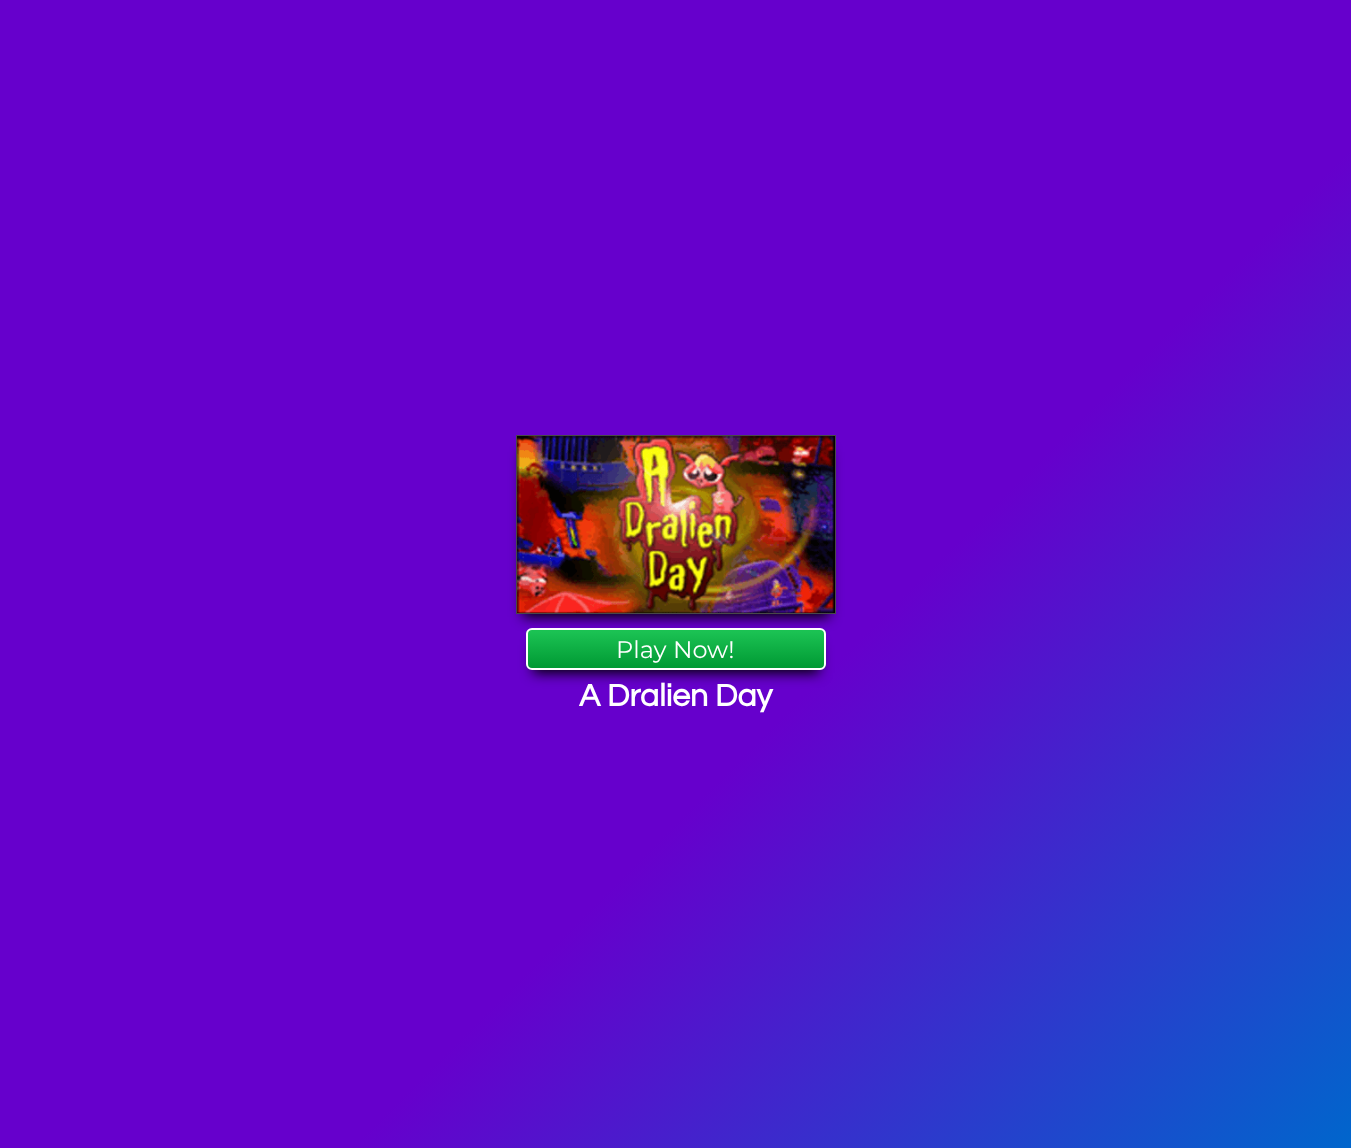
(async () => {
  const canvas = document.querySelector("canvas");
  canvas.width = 1351;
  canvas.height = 1148;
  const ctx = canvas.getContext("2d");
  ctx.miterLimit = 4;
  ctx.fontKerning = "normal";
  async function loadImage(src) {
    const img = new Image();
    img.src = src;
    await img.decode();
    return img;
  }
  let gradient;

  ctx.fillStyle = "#ffffff";
  ctx.fillRect(0, 0, 1351, 1148);
  gradient = ctx.createLinearGradient(51, -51, 1300, 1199);
  gradient.addColorStop(0, "#6600cc");
  gradient.addColorStop(0.6, "#6600cc");
  gradient.addColorStop(1, "#0066cc");
  ctx.fillStyle = gradient;
  ctx.fillRect(0, 0, 1351, 1148);
  ctx.fillStyle = "#000000";
  ctx.filter = "blur(6.5px)";
  ctx.beginPath();
  ctx.rect(523, 452, 306, 165);
  ctx.fill();
  ctx.filter = "none";
  ctx.strokeStyle = "#484848";
  ctx.strokeRect(516.5, 435.5, 319, 178);
  ctx.drawImage(await loadImage("img/1.png"), 517, 436, 318, 177);
  ctx.filter = "blur(6.5px)";
  ctx.beginPath();
  ctx.rect(533, 645, 286, 28);
  ctx.fill();
  ctx.filter = "none";
  ctx.save();
  ctx.beginPath();
  ctx.roundRect(526, 628, 300, 42, 6);
  ctx.clip();
  gradient = ctx.createLinearGradient(676, 630, 676, 668);
  gradient.addColorStop(0.05, "#1bc253");
  gradient.addColorStop(1, "#009933");
  ctx.fillStyle = gradient;
  ctx.fillRect(526, 630, 300, 38);
  ctx.restore();
  ctx.beginPath();
  ctx.roundRect(527, 629, 298, 40, 5);
  ctx.strokeStyle = "#ffffff";
  ctx.lineWidth = 2;
  ctx.stroke();
  ctx.font = "24px Montserrat";
  ctx.fillStyle = "#ffffff";
  ctx.fillText("Play Now!", 616, 658);
  ctx.font = "bold 32px Questrial";
  ctx.fillText("A Dralien Day", 579, 706);
})();
